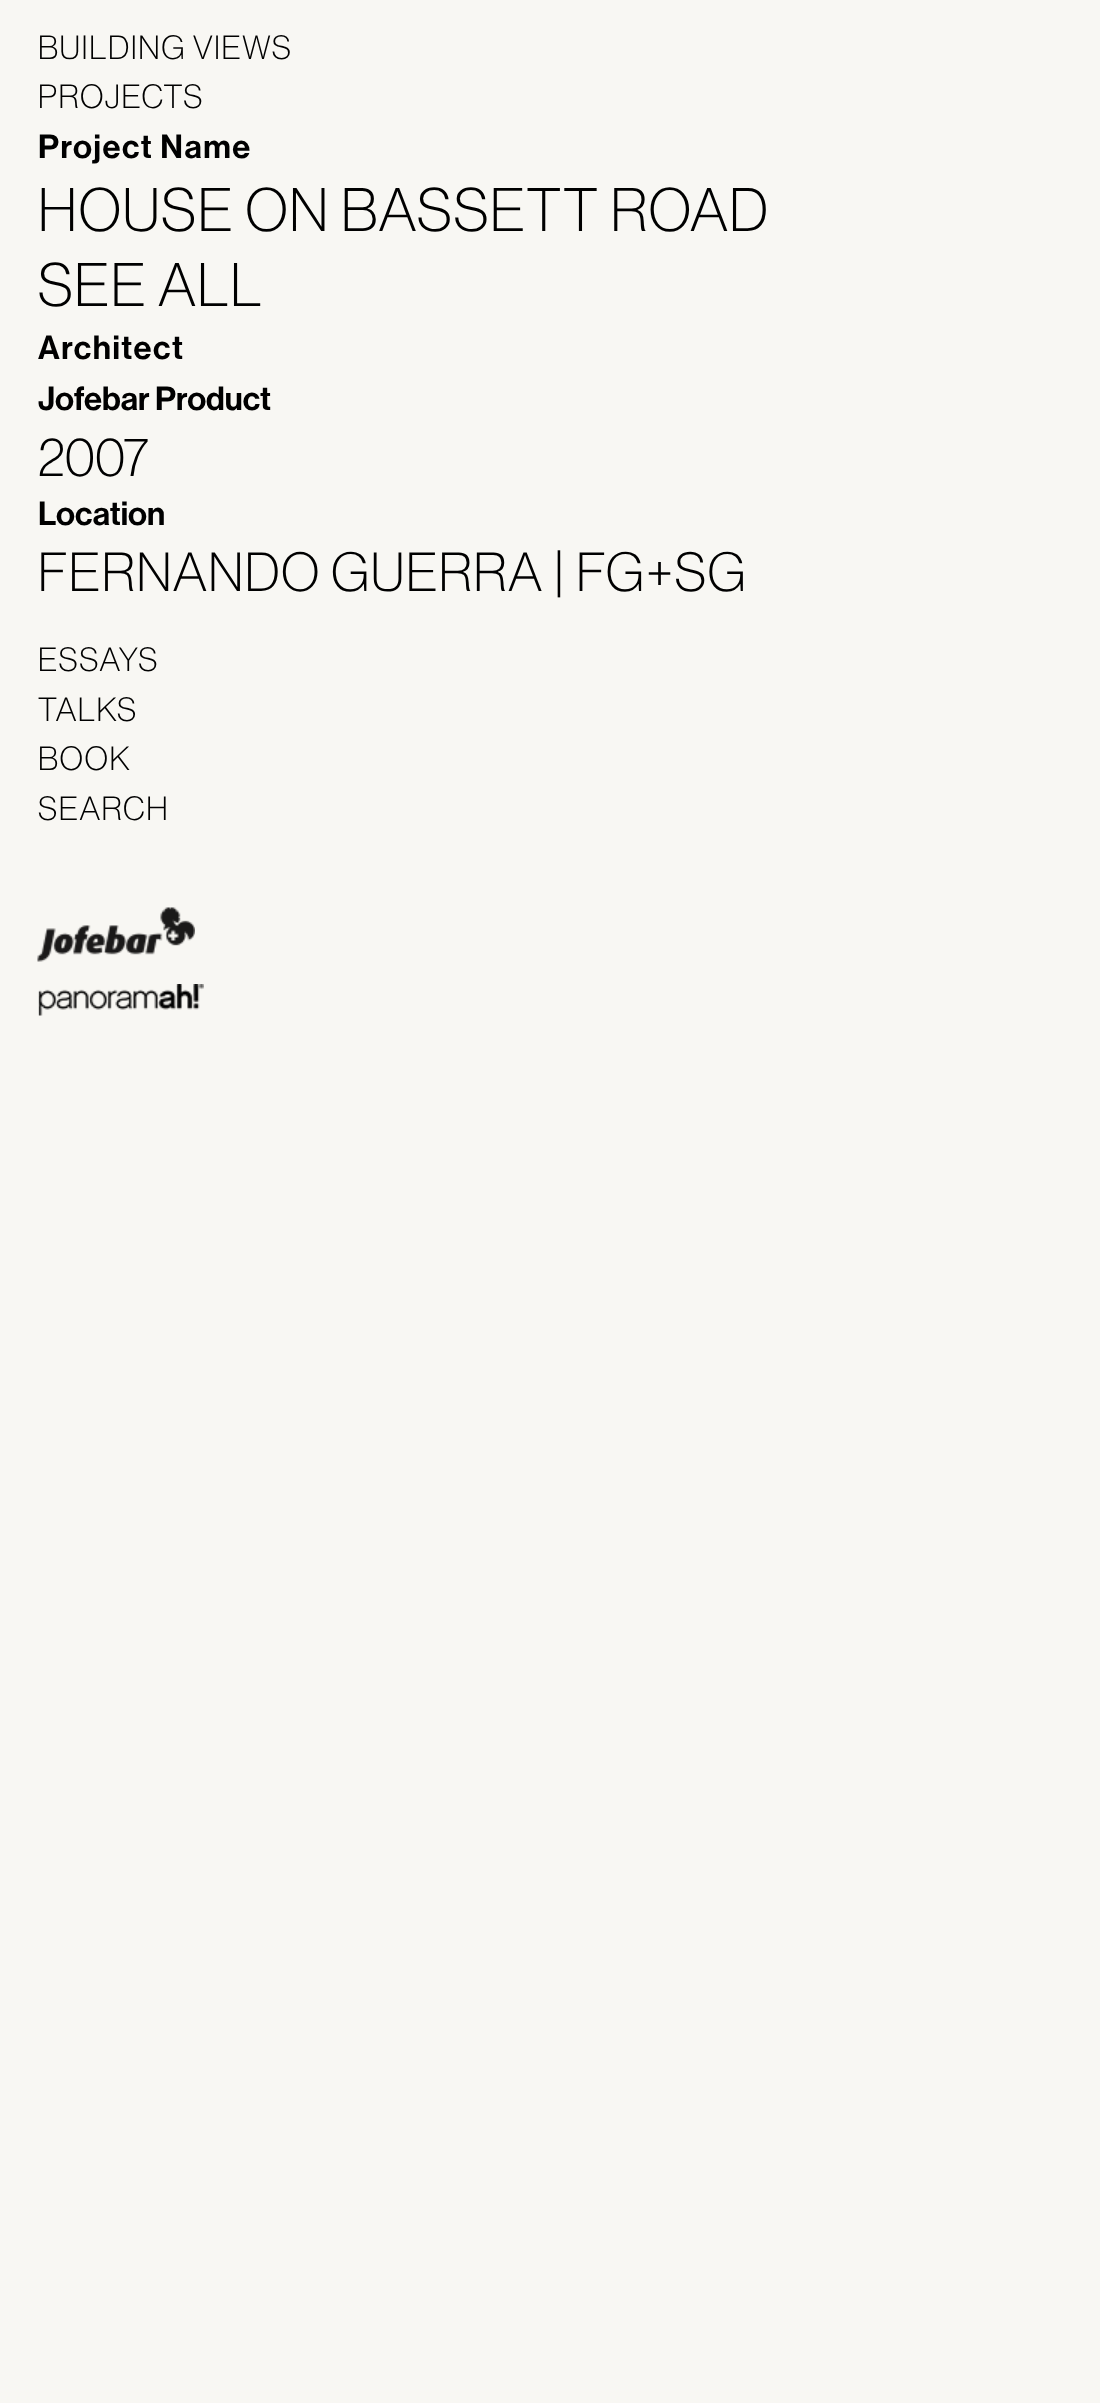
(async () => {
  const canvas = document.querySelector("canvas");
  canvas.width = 1100;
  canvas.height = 2403;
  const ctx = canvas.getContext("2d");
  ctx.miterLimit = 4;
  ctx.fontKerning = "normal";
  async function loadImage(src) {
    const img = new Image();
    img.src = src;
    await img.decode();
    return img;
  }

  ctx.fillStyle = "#f8f7f3";
  ctx.fillRect(0, 0, 1100, 2403);
  ctx.drawImage(await loadImage("img/1.png"), 37, 907, 158, 55);
  ctx.drawImage(await loadImage("img/2.png"), 38, 984, 166, 32);
  ctx.letterSpacing = "1.5px";
  ctx.font = "300 33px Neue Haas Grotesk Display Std";
  ctx.fillStyle = "#000000";
  ctx.fillText("BUILDING VIEWS", 38, 59);
  ctx.fillText("PROJECTS", 38, 108);
  ctx.font = "500 33px Neue Haas Grotesk Display Std";
  ctx.fillText("Project Name", 38, 158);
  ctx.font = "300 60px Neue Haas Grotesk Display Std";
  ctx.fillText("HOUSE ON BASSETT ROAD", 38, 231);
  ctx.fillText("SEE ALL", 38, 306);
  ctx.font = "500 33px Neue Haas Grotesk Display Std";
  ctx.fillText("Architect", 38, 359);
  ctx.letterSpacing = "0px";
  ctx.fillText("Jofebar Product", 38, 410);
  ctx.font = "300 54px Neue Haas Grotesk Display Std";
  ctx.fillText("2007", 38, 476);
  ctx.font = "500 33px Neue Haas Grotesk Display Std";
  ctx.fillText("Location", 38, 525);
  ctx.letterSpacing = "1.5px";
  ctx.font = "300 54px Neue Haas Grotesk Display Std";
  ctx.fillText("FERNANDO GUERRA | FG+SG", 38, 591);
  ctx.font = "300 33px Neue Haas Grotesk Display Std";
  for (const [text, x, y] of [
    ["ESSAYS", 38, 671],
    ["TALKS", 38, 721],
    ["BOOK", 38, 770],
    ["SEARCH", 38, 820],
  ]) {
    ctx.fillText(text, x, y);
  }
})();
